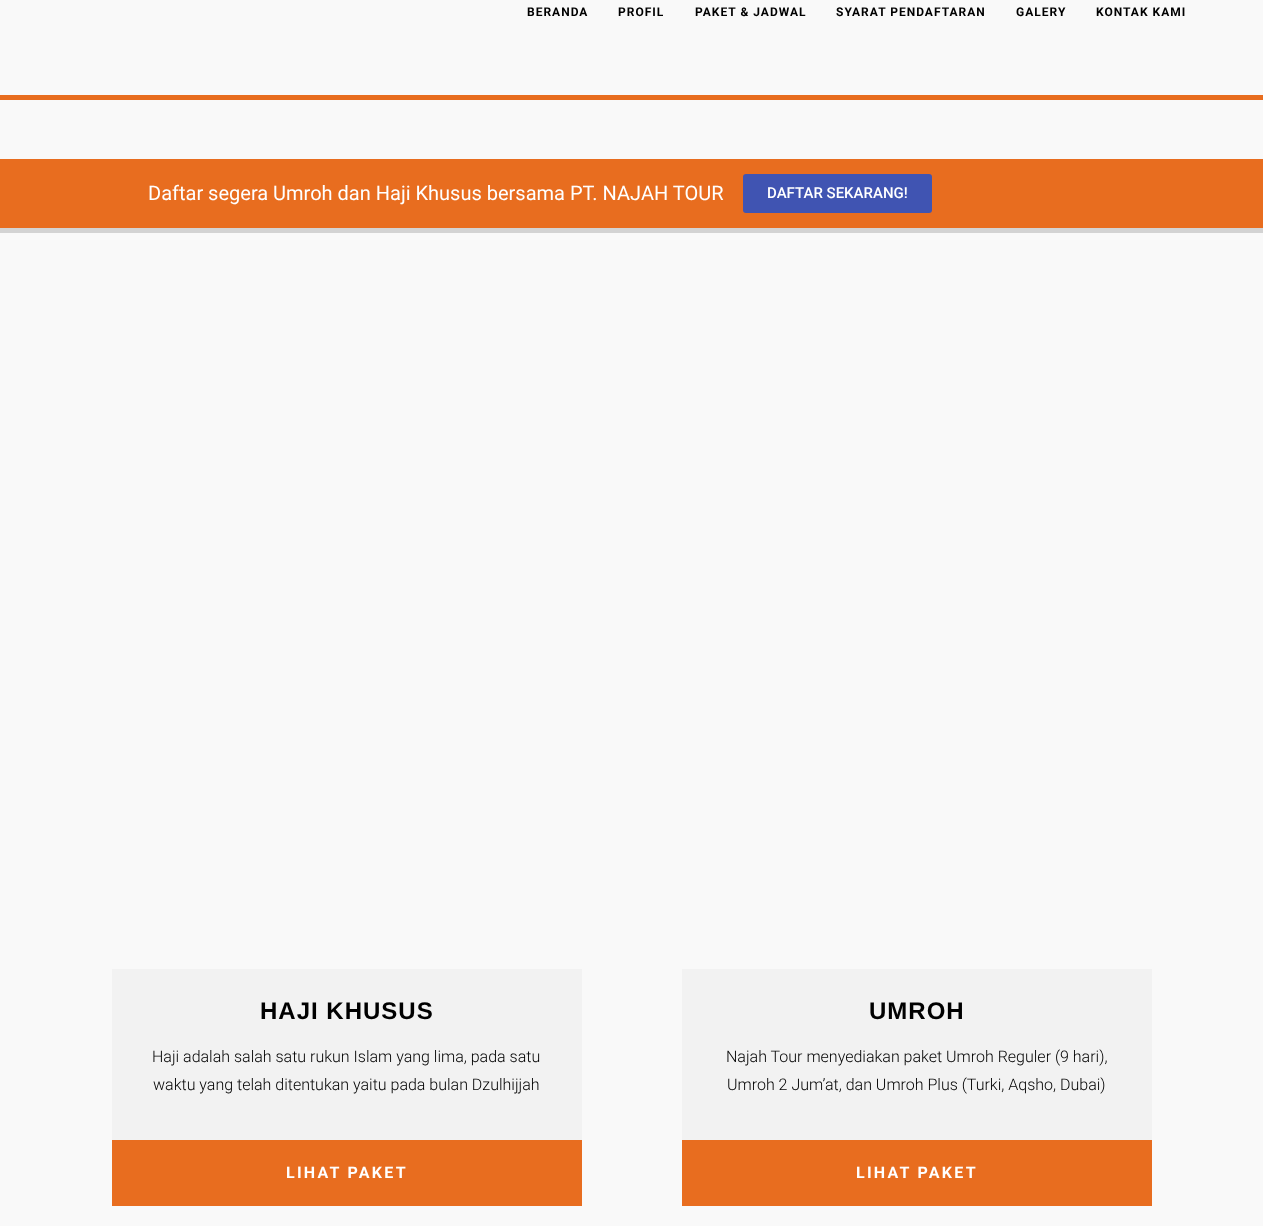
(async () => {
  const canvas = document.querySelector("canvas");
  canvas.width = 1263;
  canvas.height = 1226;
  const ctx = canvas.getContext("2d");
  ctx.miterLimit = 4;
  ctx.fontKerning = "normal";

  ctx.fillStyle = "#f9f9f9";
  ctx.fillRect(0, 0, 1263, 1226);
  for (const [x, y, w, h, color] of [
    [0, 95, 1263, 5, "#e86d1f"],
    [0, 159, 1263, 69, "#e86d1f"],
    [0, 228, 1263, 5, "#d3d3d3"],
  ]) {
    ctx.fillStyle = color;
    ctx.fillRect(x, y, w, h);
  }
  ctx.fillStyle = "#4054b2";
  ctx.beginPath();
  ctx.roundRect(743, 174, 189, 39, 3);
  ctx.fill();
  for (const [x, y, w, h, color] of [
    [112, 969, 470, 171, "#f2f2f2"],
    [112, 1140, 470, 66, "#e86d1f"],
    [682, 969, 470, 171, "#f2f2f2"],
    [682, 1140, 470, 66, "#e86d1f"],
  ]) {
    ctx.fillStyle = color;
    ctx.fillRect(x, y, w, h);
  }
  ctx.letterSpacing = "1px";
  ctx.font = "bold 12px Roboto";
  ctx.fillStyle = "#000000";
  for (const [text, x, y] of [
    ["BERANDA", 527, 16],
    ["PROFIL", 618, 16],
    ["PAKET & JADWAL", 695, 16],
    ["SYARAT PENDAFTARAN", 836, 16],
    ["GALERY", 1016, 16],
    ["KONTAK KAMI", 1096, 16],
  ]) {
    ctx.fillText(text, x, y);
  }
  ctx.letterSpacing = "0px";
  ctx.font = "20px Roboto";
  ctx.fillStyle = "#ffffff";
  ctx.fillText("Daftar segera Umroh dan Haji Khusus bersama PT. NAJAH TOUR", 148, 200);
  ctx.font = "500 15px Roboto";
  ctx.fillText("DAFTAR SEKARANG!", 767, 198);
  ctx.letterSpacing = "1px";
  ctx.font = "bold 24px Liberation Sans";
  ctx.fillStyle = "#000000";
  ctx.fillText("HAJI KHUSUS", 260, 1019);
  ctx.letterSpacing = "0px";
  ctx.font = "300 16px Roboto";
  ctx.fillText("Haji adalah salah satu rukun Islam yang lima, pada satu", 152, 1062);
  ctx.fillText("waktu yang telah ditentukan yaitu pada bulan Dzulhijjah", 153, 1090);
  ctx.letterSpacing = "2.25px";
  ctx.font = "bold 16px Roboto";
  ctx.fillStyle = "#ffffff";
  ctx.fillText("LIHAT PAKET", 286, 1178);
  ctx.letterSpacing = "1px";
  ctx.font = "bold 24px Liberation Sans";
  ctx.fillStyle = "#000000";
  ctx.fillText("UMROH", 869, 1019);
  ctx.letterSpacing = "0px";
  ctx.font = "300 16px Roboto";
  ctx.fillText("Najah Tour menyediakan paket Umroh Reguler (9 hari),", 726, 1062);
  ctx.fillText("Umroh 2 Jum’at, dan Umroh Plus (Turki, Aqsho, Dubai)", 727, 1090);
  ctx.letterSpacing = "2.25px";
  ctx.font = "bold 16px Roboto";
  ctx.fillStyle = "#ffffff";
  ctx.fillText("LIHAT PAKET", 856, 1178);
})();
